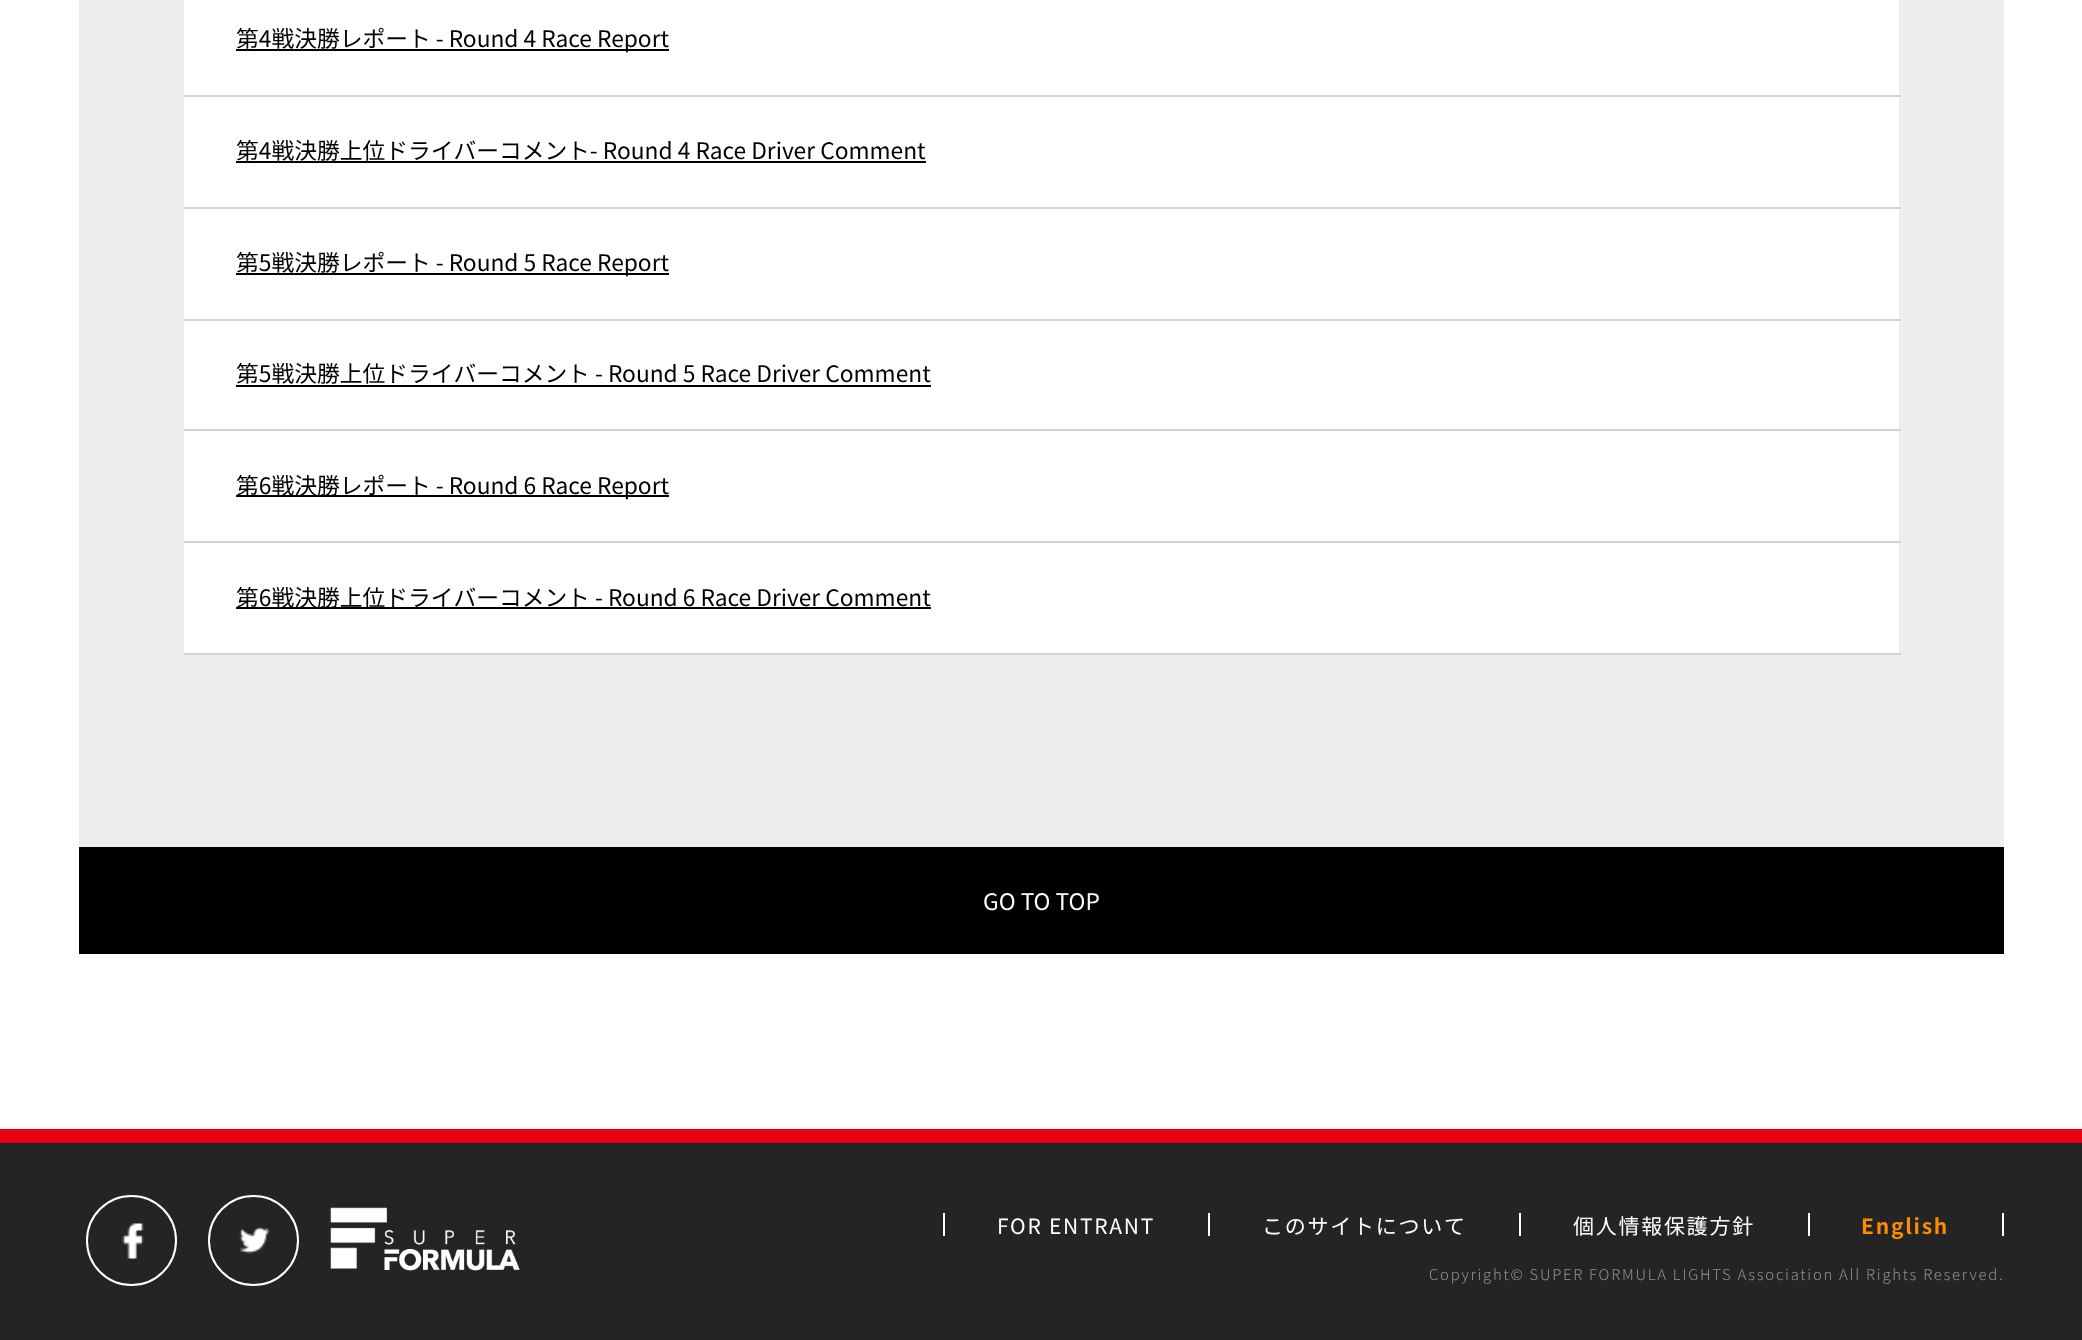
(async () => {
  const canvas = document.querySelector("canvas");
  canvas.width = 2082;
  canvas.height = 1340;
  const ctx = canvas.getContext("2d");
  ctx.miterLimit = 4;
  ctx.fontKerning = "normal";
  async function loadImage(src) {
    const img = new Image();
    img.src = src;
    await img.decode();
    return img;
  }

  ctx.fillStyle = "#ffffff";
  ctx.fillRect(0, 0, 2082, 1340);
  for (const [x, y, w, h, color] of [
    [79, 0, 1925, 847, "#eeeeee"],
    [184, 0, 1715, 95, "#ffffff"],
    [184, 95, 1717, 2, "#d2d2d2"],
    [236, 49, 433, 2, "#000000"],
    [184, 97, 1715, 110, "#ffffff"],
    [184, 207, 1717, 2, "#d2d2d2"],
    [236, 161, 690, 2, "#000000"],
    [184, 209, 1715, 110, "#ffffff"],
    [184, 319, 1717, 2, "#d2d2d2"],
    [236, 273, 433, 2, "#000000"],
    [184, 321, 1715, 108, "#ffffff"],
    [184, 429, 1717, 2, "#d2d2d2"],
    [236, 385, 695, 2, "#000000"],
    [184, 431, 1715, 110, "#ffffff"],
    [184, 541, 1717, 2, "#d2d2d2"],
    [236, 495, 433, 2, "#000000"],
    [184, 543, 1715, 110, "#ffffff"],
    [184, 653, 1717, 2, "#d2d2d2"],
    [236, 607, 695, 2, "#000000"],
    [79, 847, 1925, 107, "#000000"],
    [0, 1143, 2082, 197, "#242424"],
    [0, 1129, 2082, 14, "#e60012"],
  ]) {
    ctx.fillStyle = color;
    ctx.fillRect(x, y, w, h);
  }
  ctx.beginPath();
  ctx.arc(131.5, 1240.5, 44.5, 0, Math.PI * 2);
  ctx.strokeStyle = "#ffffff";
  ctx.lineWidth = 2;
  ctx.stroke();
  ctx.drawImage(await loadImage("img/1.png"), 122, 1223, 22, 36);
  ctx.beginPath();
  ctx.arc(253.5, 1240.5, 44.5, 0, Math.PI * 2);
  ctx.stroke();
  ctx.drawImage(await loadImage("img/2.png"), 239, 1226, 31, 28);
  ctx.drawImage(await loadImage("img/3.png"), 330, 1207, 190, 64);
  for (const [x, y, w, h, color] of [
    [1208, 1213, 2, 23, "#ffffff"],
    [943, 1213, 2, 23, "#ffffff"],
    [1519, 1213, 2, 23, "#ffffff"],
    [1808, 1213, 2, 23, "#ffffff"],
    [2002, 1213, 2, 23, "#ffffff"],
  ]) {
    ctx.fillStyle = color;
    ctx.fillRect(x, y, w, h);
  }
  ctx.font = "22.75px Noto Sans JP";
  ctx.fillStyle = "#000000";
  for (const [text, x, y] of [
    ["第4戦決勝レポート - Round 4 Race Report", 236, 47],
    ["第4戦決勝上位ドライバーコメント- Round 4 Race Driver Comment", 236, 159],
    ["第5戦決勝レポート - Round 5 Race Report", 236, 271],
    ["第5戦決勝上位ドライバーコメント - Round 5 Race Driver Comment", 236, 382],
    ["第6戦決勝レポート - Round 6 Race Report", 236, 494],
    ["第6戦決勝上位ドライバーコメント - Round 6 Race Driver Comment", 236, 606],
  ]) {
    ctx.fillText(text, x, y);
  }
  ctx.fillStyle = "#ffffff";
  ctx.fillText("GO TO TOP", 983, 910);
  ctx.letterSpacing = "1.75px";
  ctx.font = "21px Noto Sans JP";
  for (const [text, x, y] of [
    ["FOR ENTRANT", 997, 1234],
    ["このサイトについて", 1262, 1234],
    ["個人情報保護方針", 1573, 1234],
  ]) {
    ctx.fillText(text, x, y);
  }
  ctx.font = "bold 21px Noto Sans JP";
  ctx.fillStyle = "#ff8c00";
  ctx.fillText("English", 1861, 1234);
  ctx.font = "300 14.9px Noto Sans JP";
  ctx.fillStyle = "#929292";
  ctx.fillText("Copyright© SUPER FORMULA LIGHTS Association All Rights Reserved.", 1429, 1280);
})();
